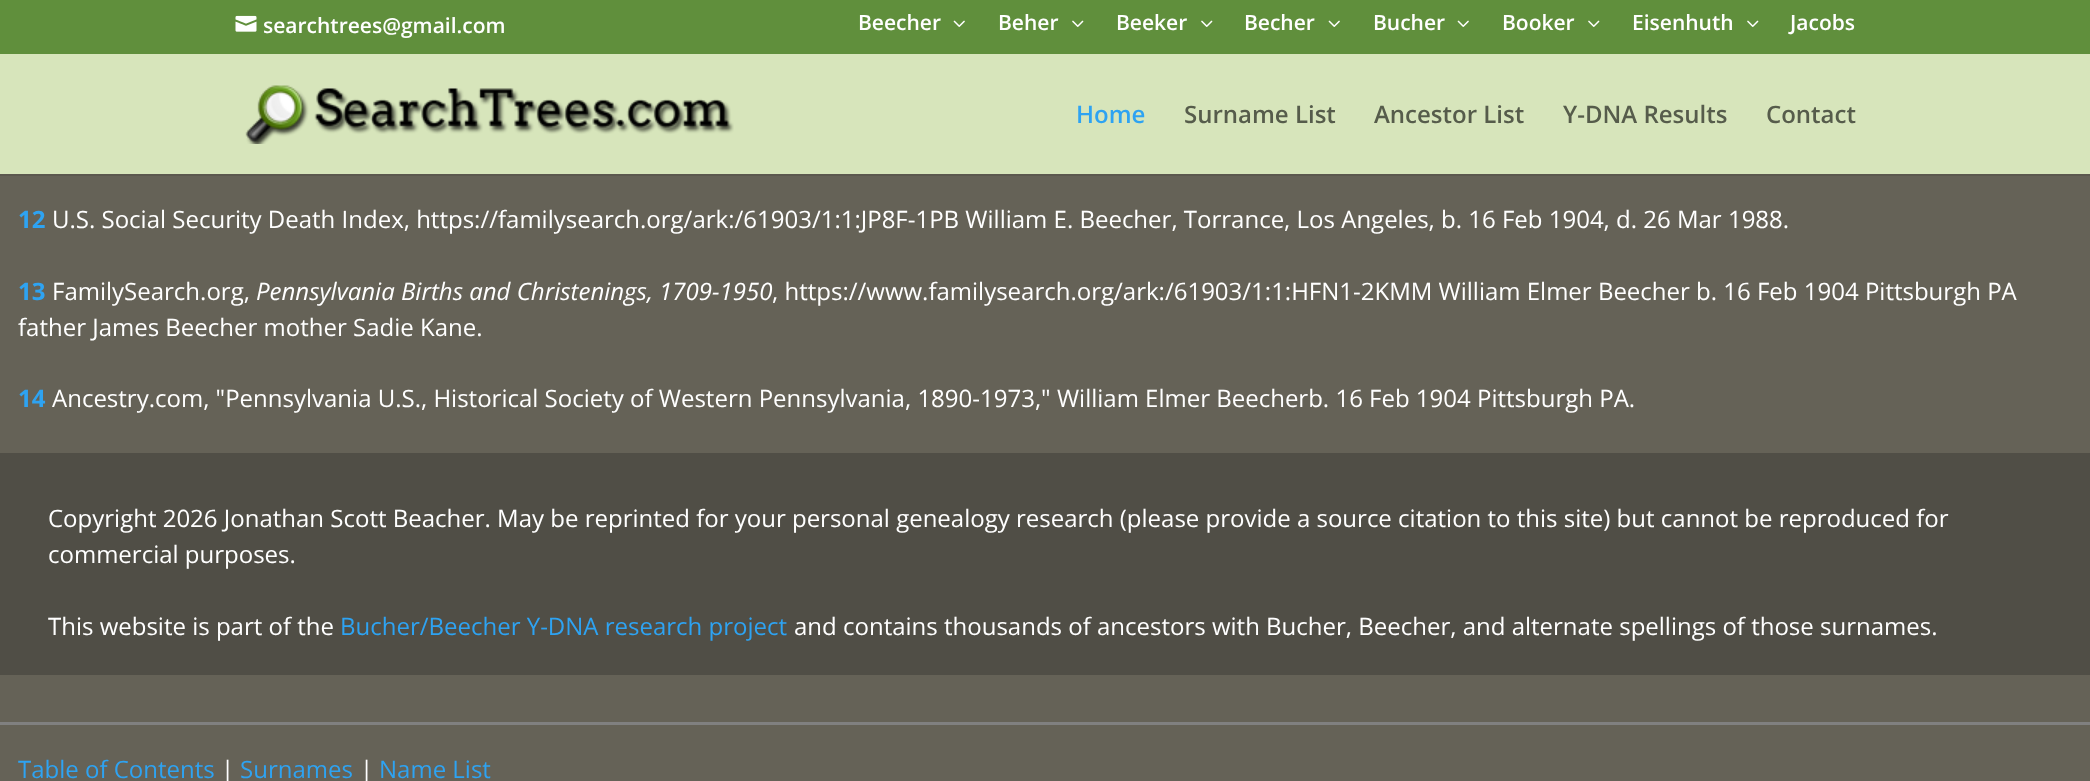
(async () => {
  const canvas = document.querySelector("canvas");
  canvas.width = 2090;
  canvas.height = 781;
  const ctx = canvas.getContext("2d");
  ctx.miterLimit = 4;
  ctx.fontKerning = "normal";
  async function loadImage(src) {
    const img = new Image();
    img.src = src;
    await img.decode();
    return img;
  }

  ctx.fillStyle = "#656257";
  ctx.fillRect(0, 0, 2090, 781);
  ctx.fillStyle = "#608f3c";
  ctx.fillRect(0, 0, 2090, 54);
  ctx.drawImage(await loadImage("img/1.png"), 235, 15, 22, 17);
  ctx.drawImage(await loadImage("img/2.png"), 953, 20, 12, 7);
  ctx.drawImage(await loadImage("img/3.png"), 1072, 20, 12, 7);
  ctx.drawImage(await loadImage("img/3.png"), 1201, 20, 12, 7);
  ctx.drawImage(await loadImage("img/2.png"), 1328, 20, 12, 7);
  ctx.drawImage(await loadImage("img/2.png"), 1457, 20, 12, 7);
  ctx.drawImage(await loadImage("img/3.png"), 1588, 20, 12, 7);
  ctx.drawImage(await loadImage("img/3.png"), 1747, 20, 12, 7);
  ctx.fillStyle = "#5b584e";
  ctx.fillRect(0, 174, 2090, 2);
  ctx.fillStyle = "#d7e5bb";
  ctx.fillRect(0, 54, 2090, 120);
  ctx.drawImage(await loadImage("img/4.png"), 245, 84, 489, 60);
  ctx.fillStyle = "#504e46";
  ctx.fillRect(0, 453, 2090, 222);
  ctx.fillStyle = "#808080";
  ctx.fillRect(0, 722, 2090, 3);
  ctx.font = "600 21px Open Sans";
  ctx.fillStyle = "#ffffff";
  for (const [text, x, y] of [
    ["searchtrees@gmail.com", 263, 33],
    ["Beecher", 858, 30],
    ["Beher", 998, 30],
    ["Beeker", 1116, 30],
    ["Becher", 1244, 30],
    ["Bucher", 1373, 30],
    ["Booker", 1502, 30],
    ["Eisenhuth", 1632, 30],
    ["Jacobs", 1790, 30],
  ]) {
    ctx.fillText(text, x, y);
  }
  ctx.font = "600 24px Open Sans";
  ctx.fillStyle = "#2ea3f2";
  ctx.fillText("Home", 1076, 123);
  ctx.fillStyle = "#565c4b";
  for (const [text, x, y] of [
    ["Surname List", 1184, 123],
    ["Ancestor List", 1374, 123],
    ["Y-DNA Results", 1563, 123],
    ["Contact", 1766, 123],
  ]) {
    ctx.fillText(text, x, y);
  }
  ctx.font = "bold 24px Open Sans";
  ctx.fillStyle = "#2ea3f2";
  ctx.fillText("12", 18, 228);
  ctx.font = "24px Open Sans";
  ctx.fillStyle = "#ffffff";
  ctx.fillText("U.S. Social Security Death Index, https://familysearch.org/ark:/61903/1:1:JP8F-1PB William E. Beecher, Torrance, Los Angeles, b. 16 Feb 1904, d. 26 Mar 1988.", 52, 228);
  ctx.font = "bold 24px Open Sans";
  ctx.fillStyle = "#2ea3f2";
  ctx.fillText("13", 18, 300);
  ctx.font = "24px Open Sans";
  ctx.fillStyle = "#ffffff";
  ctx.fillText("FamilySearch.org,", 52, 300);
  ctx.font = "italic 24px Open Sans";
  ctx.fillText("Pennsylvania Births and Christenings, 1709-1950", 256, 300);
  ctx.font = "24px Open Sans";
  ctx.fillText(", https://www.familysearch.org/ark:/61903/1:1:HFN1-2KMM William Elmer Beecher b. 16 Feb 1904 Pittsburgh PA", 772, 300);
  ctx.fillText("father James Beecher mother Sadie Kane.", 18, 336);
  ctx.font = "bold 24px Open Sans";
  ctx.fillStyle = "#2ea3f2";
  ctx.fillText("14", 18, 407);
  ctx.font = "24px Open Sans";
  ctx.fillStyle = "#ffffff";
  for (const [text, x, y] of [
    ["Ancestry.com, \"Pennsylvania U.S., Historical Society of Western Pennsylvania, 1890-1973,\" William Elmer Beecherb. 16 Feb 1904 Pittsburgh PA.", 52, 407],
    ["Copyright 2026 Jonathan Scott Beacher. May be reprinted for your personal genealogy research (please provide a source citation to this site) but cannot be reproduced for", 48, 527],
    ["commercial purposes.", 48, 563],
    ["This website is part of the", 48, 635],
  ]) {
    ctx.fillText(text, x, y);
  }
  ctx.fillStyle = "#2ea3f2";
  ctx.fillText("Bucher/Beecher Y-DNA research project", 340, 635);
  ctx.fillStyle = "#ffffff";
  ctx.fillText("and contains thousands of ancestors with Bucher, Beecher, and alternate spellings of those surnames.", 794, 635);
  ctx.fillStyle = "#2ea3f2";
  ctx.fillText("Table of Contents", 18, 778);
  ctx.fillStyle = "#ffffff";
  ctx.fillText("|", 221, 778);
  ctx.fillStyle = "#2ea3f2";
  ctx.fillText("Surnames", 240, 778);
  ctx.fillStyle = "#ffffff";
  ctx.fillText("|", 360, 778);
  ctx.fillStyle = "#2ea3f2";
  ctx.fillText("Name List", 379, 778);
})();
